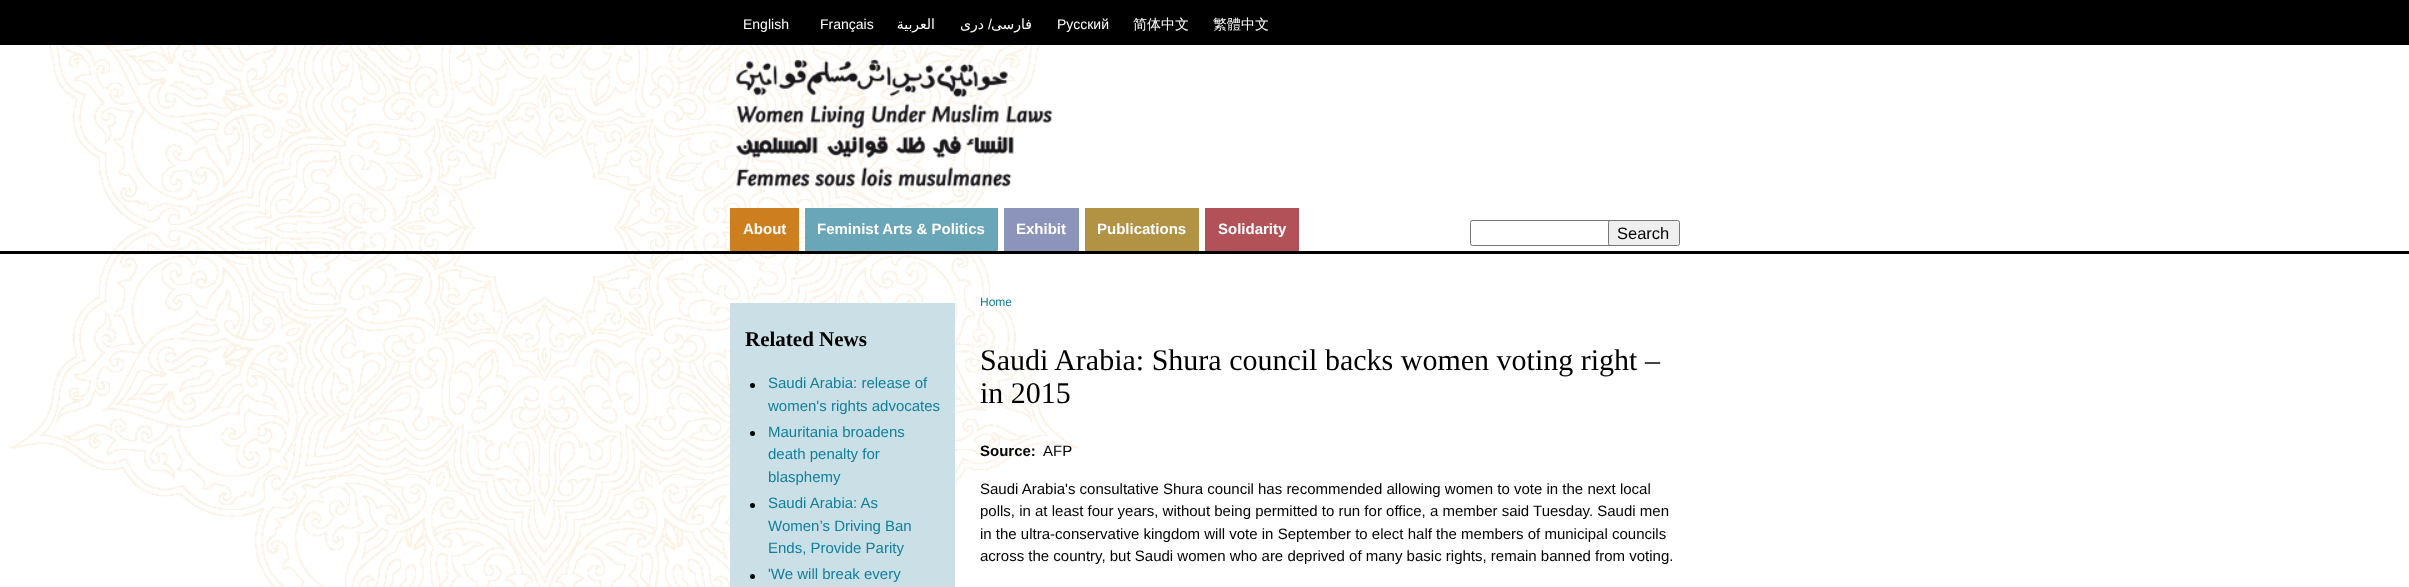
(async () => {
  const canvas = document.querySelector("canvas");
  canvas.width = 2409;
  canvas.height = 587;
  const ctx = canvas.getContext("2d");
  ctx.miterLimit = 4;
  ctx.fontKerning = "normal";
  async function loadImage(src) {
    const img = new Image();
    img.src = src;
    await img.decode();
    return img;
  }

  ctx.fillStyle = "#ffffff";
  ctx.fillRect(0, 0, 2409, 587);
  ctx.drawImage(await loadImage("img/1.png"), 10, 45, 1069, 542);
  ctx.fillStyle = "#000000";
  ctx.fillRect(0, 0, 2409, 45);
  ctx.drawImage(await loadImage("img/2.png"), 736, 59, 317, 128);
  for (const [x, y, w, h, color] of [
    [0, 251, 2409, 3, "#000000"],
    [730, 208, 69, 43, "#cd7f1f"],
    [805, 208, 193, 43, "#69a6b7"],
    [1004, 208, 75, 43, "#8c94bc"],
    [1085, 208, 114, 43, "#b29243"],
    [1205, 208, 94, 43, "#b35158"],
  ]) {
    ctx.fillStyle = color;
    ctx.fillRect(x, y, w, h);
  }
  ctx.beginPath();
  ctx.roundRect(1470.5, 220.5, 150, 25, 2);
  ctx.strokeStyle = "#767676";
  ctx.stroke();
  ctx.fillStyle = "#efefef";
  ctx.beginPath();
  ctx.roundRect(1608.5, 220.5, 71, 25, 2);
  ctx.fill();
  ctx.stroke();
  ctx.fillStyle = "#cbe0e6";
  ctx.fillRect(730, 303, 225, 284);
  ctx.fillStyle = "#000000";
  ctx.beginPath();
  ctx.arc(752.5, 385.5, 2.5, 0, Math.PI * 2);
  ctx.fill();
  ctx.beginPath();
  ctx.arc(752.5, 433.5, 2.5, 0, Math.PI * 2);
  ctx.fill();
  ctx.beginPath();
  ctx.arc(752.5, 505.5, 2.5, 0, Math.PI * 2);
  ctx.fill();
  ctx.beginPath();
  ctx.arc(752.5, 576.5, 2.5, 0, Math.PI * 2);
  ctx.fill();
  ctx.font = "14px Liberation Sans";
  ctx.fillStyle = "#ffffff";
  ctx.fillText("English", 743, 29);
  ctx.fillText("Français", 820, 29);
  ctx.direction = "rtl";
  ctx.font = "14px DejaVu Sans";
  ctx.fillText("العربية", 935, 29);
  ctx.fillText("دری", 984, 29);
  ctx.font = "14px Liberation Sans";
  ctx.fillText("/", 992, 29);
  ctx.font = "14px DejaVu Sans";
  ctx.fillText("فارسی", 1032, 29);
  ctx.direction = "ltr";
  ctx.font = "14px Liberation Sans";
  ctx.fillText("Русский", 1057, 29);
  ctx.font = "500 14px WenQuanYi Zen Hei";
  ctx.fillText("简体中文", 1133, 29);
  ctx.fillText("繁體中文", 1213, 29);
  ctx.font = "bold 15px Liberation Sans";
  for (const [text, x, y] of [
    ["About", 743, 234],
    ["Feminist Arts & Politics", 817, 234],
    ["Exhibit", 1016, 234],
    ["Publications", 1097, 234],
    ["Solidarity", 1218, 234],
  ]) {
    ctx.fillText(text, x, y);
  }
  ctx.font = "16.5px Liberation Sans";
  ctx.fillStyle = "#000000";
  ctx.fillText("Search", 1617, 239);
  ctx.font = "bold 21px Liberation Serif";
  ctx.fillText("Related News", 745, 346);
  ctx.font = "15px Liberation Sans";
  ctx.fillStyle = "#107f9b";
  for (const [text, x, y] of [
    ["Saudi Arabia: release of", 768, 388],
    ["women's rights advocates", 768, 411],
    ["Mauritania broadens", 768, 437],
    ["death penalty for", 768, 459],
    ["blasphemy", 768, 482],
    ["Saudi Arabia: As", 768, 508],
    ["Women’s Driving Ban", 768, 531],
    ["Ends, Provide Parity", 768, 553],
    ["'We will break every", 768, 579],
  ]) {
    ctx.fillText(text, x, y);
  }
  ctx.font = "12px Liberation Sans";
  ctx.fillText("Home", 980, 306);
  ctx.font = "30px Liberation Serif";
  ctx.fillStyle = "#000000";
  ctx.fillText("Saudi Arabia: Shura council backs women voting right –", 980, 370);
  ctx.fillText("in 2015", 980, 403);
  ctx.font = "bold 15px Liberation Sans";
  ctx.fillText("Source:", 980, 456);
  ctx.font = "15px Liberation Sans";
  for (const [text, x, y] of [
    ["AFP", 1043, 456],
    ["Saudi Arabia's consultative Shura council has recommended allowing women to vote in the next local", 980, 494],
    ["polls, in at least four years, without being permitted to run for office, a member said Tuesday. Saudi men", 980, 516],
    ["in the ultra-conservative kingdom will vote in September to elect half the members of municipal councils", 980, 539],
    ["across the country, but Saudi women who are deprived of many basic rights, remain banned from voting.", 980, 561],
  ]) {
    ctx.fillText(text, x, y);
  }
})();
